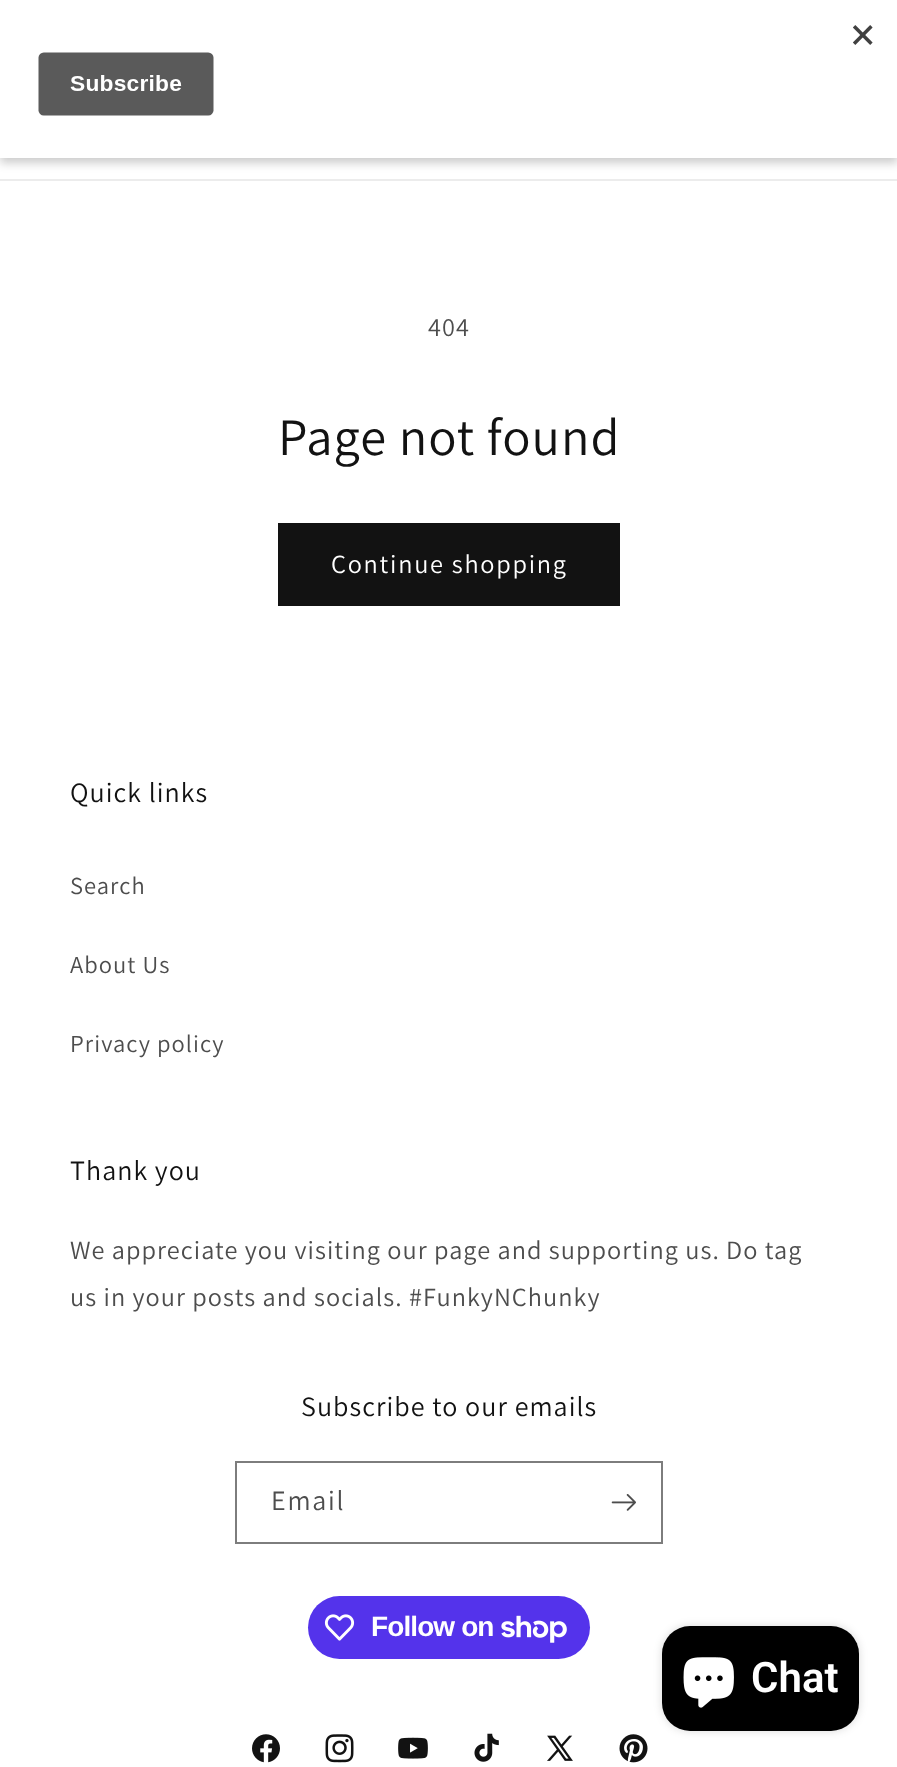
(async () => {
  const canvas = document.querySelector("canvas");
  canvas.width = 897;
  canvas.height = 1767;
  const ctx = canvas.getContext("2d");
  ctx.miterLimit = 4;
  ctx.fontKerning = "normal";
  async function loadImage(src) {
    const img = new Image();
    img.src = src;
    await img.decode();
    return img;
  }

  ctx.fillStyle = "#ffffff";
  ctx.fillRect(0, 0, 897, 1767);
  ctx.fillStyle = "rgba(0, 0, 0, 0.2)";
  ctx.filter = "blur(5px)";
  ctx.beginPath();
  ctx.rect(0, 5, 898, 158);
  ctx.fill();
  ctx.filter = "none";
  ctx.fillStyle = "#ffffff";
  ctx.fillRect(0, 0, 897, 158);
  ctx.drawImage(await loadImage("img/1.png"), 38, 25, 835, 91);
  ctx.fillStyle = "#ececec";
  ctx.fillRect(0, 179, 897, 2);
  ctx.fillStyle = "#121212";
  ctx.fillRect(278, 523, 342, 83);
  ctx.strokeStyle = "#7d7d7d";
  ctx.lineWidth = 2;
  ctx.strokeRect(236, 1462, 426, 81);
  ctx.drawImage(await loadImage("img/2.png"), 611, 1494, 25, 17);
  ctx.fillStyle = "#5433eb";
  ctx.beginPath();
  ctx.roundRect(308, 1596, 282, 63, 31.5);
  ctx.fill();
  ctx.drawImage(await loadImage("img/3.png"), 324, 1614, 31, 27);
  ctx.drawImage(await loadImage("img/4.png"), 501, 1615, 66, 28);
  ctx.drawImage(await loadImage("img/5.png"), 252, 1734, 28, 29);
  ctx.drawImage(await loadImage("img/6.png"), 325, 1734, 29, 29);
  ctx.drawImage(await loadImage("img/7.png"), 398, 1737, 30, 22);
  ctx.drawImage(await loadImage("img/8.png"), 474, 1733, 25, 29);
  ctx.drawImage(await loadImage("img/9.png"), 547, 1735, 26, 26);
  ctx.drawImage(await loadImage("img/10.png"), 619, 1734, 29, 29);
  ctx.fillStyle = "rgba(0, 0, 0, 0.15)";
  ctx.filter = "blur(4.5px)";
  ctx.beginPath();
  ctx.roundRect(662, 1626, 197, 105, 28);
  ctx.fill();
  ctx.filter = "none";
  ctx.fillStyle = "#000000";
  ctx.beginPath();
  ctx.roundRect(662, 1626, 197, 105, 28);
  ctx.fill();
  ctx.drawImage(await loadImage("img/11.png"), 683, 1657, 51, 51);
  ctx.letterSpacing = "1.05px";
  ctx.font = "26.25px Assistant";
  ctx.fillStyle = "#4d4d4d";
  ctx.fillText("404", 428, 336);
  ctx.font = "52.5px Assistant";
  ctx.fillStyle = "#121212";
  ctx.fillText("Page not found", 278, 455);
  ctx.letterSpacing = "1.75px";
  ctx.font = "26.25px Assistant";
  ctx.fillStyle = "#ffffff";
  ctx.fillText("Continue shopping", 331, 573);
  ctx.letterSpacing = "1.05px";
  ctx.font = "28px Assistant";
  ctx.fillStyle = "#121212";
  ctx.fillText("Quick links", 70, 802);
  ctx.font = "24.5px Assistant";
  ctx.fillStyle = "#4d4d4d";
  for (const [text, x, y] of [
    ["Search", 70, 894],
    ["About Us", 70, 973],
    ["Privacy policy", 70, 1052],
  ]) {
    ctx.fillText(text, x, y);
  }
  ctx.font = "28px Assistant";
  ctx.fillStyle = "#121212";
  ctx.fillText("Thank you", 70, 1180);
  ctx.font = "26.25px Assistant";
  ctx.fillStyle = "#4d4d4d";
  ctx.fillText("We appreciate you visiting our page and supporting us. Do tag", 70, 1259);
  ctx.fillText("us in your posts and socials. #FunkyNChunky", 70, 1306);
  ctx.font = "28px Assistant";
  ctx.fillStyle = "#121212";
  ctx.fillText("Subscribe to our emails", 301, 1416);
  ctx.letterSpacing = "1.75px";
  ctx.fillStyle = "#4d4d4d";
  ctx.fillText("Email", 271, 1510);
  ctx.letterSpacing = "-0.9px";
  ctx.font = "bold 28px Liberation Sans";
  ctx.fillStyle = "#ffffff";
  ctx.fillText("Follow on", 371, 1636);
  ctx.letterSpacing = "0px";
  ctx.font = "600 42px Roboto";
  ctx.fillText("Chat", 751, 1692);
})();
